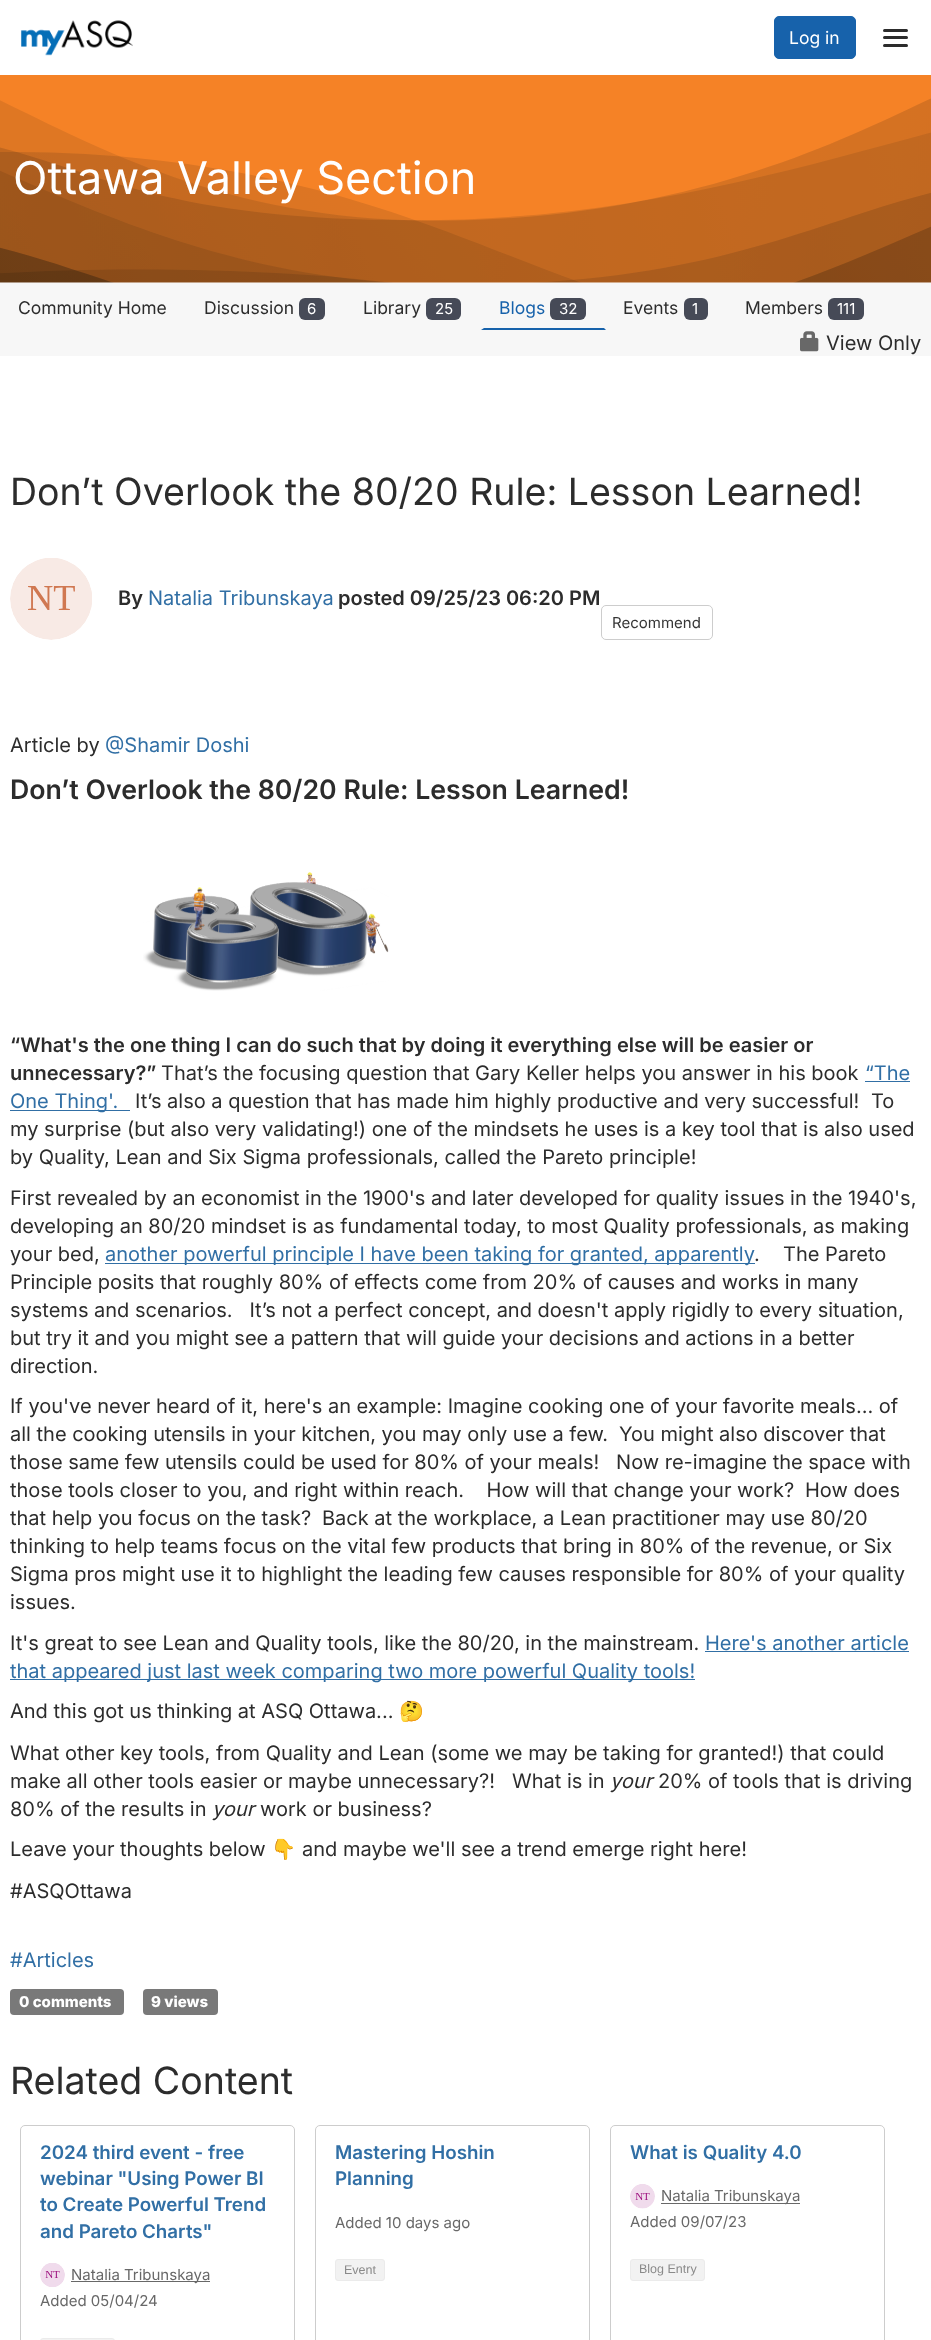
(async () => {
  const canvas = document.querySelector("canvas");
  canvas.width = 931;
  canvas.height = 2340;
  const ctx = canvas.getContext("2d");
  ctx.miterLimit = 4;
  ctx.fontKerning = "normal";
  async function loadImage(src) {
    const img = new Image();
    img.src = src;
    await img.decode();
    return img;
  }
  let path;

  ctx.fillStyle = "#ffffff";
  ctx.fillRect(0, 0, 931, 2340);
  ctx.save();
  ctx.beginPath();
  ctx.rect(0, 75, 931, 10);
  ctx.clip();
  ctx.fillStyle = "rgba(133, 137, 146, 0.24)";
  ctx.filter = "blur(5px)";
  ctx.beginPath();
  ctx.rect(0, 3, 931, 75);
  ctx.fill();
  ctx.filter = "none";
  ctx.restore();
  ctx.drawImage(await loadImage("img/1.png"), 21, 20, 112, 36);
  ctx.fillStyle = "#1762ab";
  ctx.beginPath();
  ctx.roundRect(774.5, 16.5, 81, 42, 4.5);
  ctx.fill();
  ctx.strokeStyle = "#1762ab";
  ctx.stroke();
  ctx.fillStyle = "#2c2c2c";
  ctx.beginPath();
  ctx.roundRect(883, 29, 25, 3, 1.5);
  ctx.fill();
  ctx.beginPath();
  ctx.roundRect(883, 36, 25, 3, 1.5);
  ctx.fill();
  ctx.beginPath();
  ctx.roundRect(883, 44, 25, 3, 1.5);
  ctx.fill();
  ctx.drawImage(await loadImage("img/2.png"), 0, 75, 931, 208);
  ctx.fillStyle = "#f7f7f7";
  ctx.fillRect(0, 283, 931, 73);
  ctx.fillStyle = "#464a57";
  ctx.beginPath();
  ctx.roundRect(299, 298, 26, 22, 6);
  ctx.fill();
  ctx.beginPath();
  ctx.roundRect(426, 298, 35, 22, 6);
  ctx.fill();
  ctx.fillStyle = "#1762ab";
  path = new Path2D("M606 330H481L484 328H604Z");
  ctx.fill(path);
  ctx.fillStyle = "#464a57";
  ctx.beginPath();
  ctx.roundRect(550, 298, 36, 22, 6);
  ctx.fill();
  ctx.beginPath();
  ctx.roundRect(684, 298, 24, 22, 6);
  ctx.fill();
  ctx.beginPath();
  ctx.roundRect(828, 298, 36, 22, 6);
  ctx.fill();
  ctx.drawImage(await loadImage("img/3.png"), 800, 331, 19, 21);
  ctx.drawImage(await loadImage("img/4.png"), 10, 558, 82, 82);
  ctx.beginPath();
  ctx.roundRect(601.5, 605.5, 111, 34, 4.5);
  ctx.strokeStyle = "#cdcdcd";
  ctx.stroke();
  ctx.drawImage(await loadImage("img/5.png"), 143, 872, 246, 119);
  for (const [x, y, w, h, color] of [
    [865, 1081, 45, 1, "#316fa5"],
    [10, 1110, 120, 1, "#316fa5"],
    [105, 1263, 650, 1, "#316fa5"],
    [705, 1651, 204, 1, "#316fa5"],
    [10, 1679, 685, 1, "#316fa5"],
  ]) {
    ctx.fillStyle = color;
    ctx.fillRect(x, y, w, h);
  }
  ctx.fillStyle = "#797979";
  ctx.beginPath();
  ctx.roundRect(10, 1989, 114, 26, 4);
  ctx.fill();
  ctx.beginPath();
  ctx.roundRect(143, 1989, 75, 26, 4);
  ctx.fill();
  ctx.beginPath();
  ctx.roundRect(20.5, 2125.5, 274, 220, 4.5);
  ctx.stroke();
  ctx.drawImage(await loadImage("img/6.png"), 40, 2263, 25, 24);
  ctx.fillStyle = "#686868";
  ctx.fillRect(71, 2281, 139, 1);
  ctx.fillStyle = "#f2f2f2";
  ctx.beginPath();
  ctx.roundRect(40.5, 2338.5, 74, 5, 2.5);
  ctx.fill();
  ctx.strokeStyle = "#ebebeb";
  ctx.stroke();
  ctx.beginPath();
  ctx.roundRect(315.5, 2125.5, 274, 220, 4.5);
  ctx.strokeStyle = "#cdcdcd";
  ctx.stroke();
  ctx.beginPath();
  ctx.roundRect(335.5, 2259.5, 49, 21, 2.5);
  ctx.fill();
  ctx.strokeStyle = "#ebebeb";
  ctx.stroke();
  ctx.beginPath();
  ctx.roundRect(610.5, 2125.5, 274, 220, 4.5);
  ctx.strokeStyle = "#cdcdcd";
  ctx.stroke();
  ctx.drawImage(await loadImage("img/7.png"), 630, 2184, 25, 25);
  ctx.fillStyle = "#686868";
  ctx.fillRect(661, 2203, 139, 1);
  ctx.fillStyle = "#f2f2f2";
  ctx.beginPath();
  ctx.roundRect(630.5, 2259.5, 74, 21, 2.5);
  ctx.fill();
  ctx.strokeStyle = "#ebebeb";
  ctx.stroke();
  ctx.font = "17.5px Inter";
  ctx.fillStyle = "#ffffff";
  ctx.fillText("Log in", 789, 44);
  ctx.font = "45px Inter";
  ctx.fillText("Ottawa Valley Section", 13, 194);
  ctx.font = "17.5px Inter";
  ctx.fillStyle = "#2c2c2c";
  ctx.fillText("Community Home", 18, 314);
  ctx.fillText("Discussion", 204, 314);
  ctx.font = "15px Inter";
  ctx.fillStyle = "#ffffff";
  ctx.fillText("6", 307, 314);
  ctx.font = "17.5px Inter";
  ctx.fillStyle = "#2c2c2c";
  ctx.fillText("Library", 363, 314);
  ctx.font = "15px Inter";
  ctx.fillStyle = "#ffffff";
  ctx.fillText("25", 435, 314);
  ctx.font = "17.5px Inter";
  ctx.fillStyle = "#1762ab";
  ctx.fillText("Blogs", 499, 314);
  ctx.font = "15px Inter";
  ctx.fillStyle = "#ffffff";
  ctx.fillText("32", 559, 314);
  ctx.font = "17.5px Inter";
  ctx.fillStyle = "#2c2c2c";
  ctx.fillText("Events", 623, 314);
  ctx.font = "15px Inter";
  ctx.fillStyle = "#ffffff";
  ctx.fillText("1", 692, 314);
  ctx.font = "17.5px Inter";
  ctx.fillStyle = "#2c2c2c";
  ctx.fillText("Members", 745, 314);
  ctx.font = "15px Inter";
  ctx.fillStyle = "#ffffff";
  ctx.fillText("111", 837, 314);
  ctx.font = "20px Inter";
  ctx.fillStyle = "#2c2c2c";
  ctx.fillText("View Only", 826, 350);
  ctx.font = "37.5px Inter";
  ctx.fillText("Don’t Overlook the 80/20 Rule: Lesson Learned!", 10, 505);
  ctx.font = "600 20px Inter";
  ctx.fillText("By", 118, 605);
  ctx.font = "20px Inter";
  ctx.fillStyle = "#316fa5";
  ctx.fillText("Natalia Tribunskaya", 148, 605);
  ctx.font = "600 20px Inter";
  ctx.fillStyle = "#2c2c2c";
  ctx.fillText("posted 09/25/23 06:20 PM", 338, 605);
  ctx.font = "15px Inter";
  ctx.fillStyle = "#363636";
  ctx.fillText("Recommend", 612, 628);
  ctx.font = "20px Inter";
  ctx.fillStyle = "#2c2c2c";
  ctx.fillText("Article by", 10, 752);
  ctx.fillStyle = "#316fa5";
  ctx.fillText("@Shamir Doshi", 105, 752);
  ctx.font = "600 26.7px Inter";
  ctx.fillStyle = "#2c2c2c";
  ctx.fillText("Don’t Overlook the 80/20 Rule: Lesson Learned!", 10, 799);
  ctx.font = "600 20px Inter";
  ctx.fillText("“What's the one thing I can do such that by doing it everything else will be easier or", 10, 1052);
  ctx.fillText("unnecessary?”", 10, 1080);
  ctx.font = "20px Inter";
  ctx.fillText("That’s the focusing question that Gary Keller helps you answer in his book", 161, 1080);
  ctx.fillStyle = "#316fa5";
  ctx.fillText("“The", 865, 1080);
  ctx.fillText("One Thing'.", 10, 1108);
  ctx.fillStyle = "#2c2c2c";
  for (const [text, x, y] of [
    ["It’s also a question that has made him highly productive and very successful!", 135, 1108],
    ["To", 871, 1108],
    ["my surprise (but also very validating!) one of the mindsets he uses is a key tool that is also used", 10, 1136],
    ["by Quality, Lean and Six Sigma professionals, called the Pareto principle!", 10, 1164],
    ["First revealed by an economist in the 1900's and later developed for quality issues in the 1940's,", 10, 1205],
    ["developing an 80/20 mindset is as fundamental today, to most Quality professionals, as making", 10, 1233],
    ["your bed,", 10, 1261],
  ]) {
    ctx.fillText(text, x, y);
  }
  ctx.fillStyle = "#316fa5";
  ctx.fillText("another powerful principle I have been taking for granted, apparently", 105, 1261);
  ctx.fillStyle = "#2c2c2c";
  for (const [text, x, y] of [
    [".", 754, 1261],
    ["The Pareto", 783, 1261],
    ["Principle posits that roughly 80% of effects come from 20% of causes and works in many", 10, 1289],
    ["systems and scenarios.   It’s not a perfect concept, and doesn't apply rigidly to every situation,", 10, 1317],
    ["but try it and you might see a pattern that will guide your decisions and actions in a better", 10, 1345],
    ["direction.", 10, 1373],
    ["If you've never heard of it, here's an example: Imagine cooking one of your favorite meals... of", 10, 1413],
    ["all the cooking utensils in your kitchen, you may only use a few.", 10, 1441],
    ["You might also discover that", 619, 1441],
    ["those same few utensils could be used for 80% of your meals!   Now re-imagine the space with", 10, 1469],
    ["those tools closer to you, and right within reach.    How will that change your work?", 10, 1497],
    ["How does", 805, 1497],
    ["that help you focus on the task?", 10, 1525],
    ["Back at the workplace, a Lean practitioner may use 80/20", 322, 1525],
    ["thinking to help teams focus on the vital few products that bring in 80% of the revenue, or Six", 10, 1553],
    ["Sigma pros might use it to highlight the leading few causes responsible for 80% of your quality", 10, 1581],
    ["issues.", 10, 1609],
    ["It's great to see Lean and Quality tools, like the 80/20, in the mainstream.", 10, 1650],
  ]) {
    ctx.fillText(text, x, y);
  }
  ctx.fillStyle = "#316fa5";
  ctx.fillText("Here's another article", 705, 1650);
  ctx.fillText("that appeared just last week comparing two more powerful Quality tools!", 10, 1678);
  ctx.fillStyle = "#2c2c2c";
  ctx.fillText("And this got us thinking at ASQ Ottawa...", 10, 1718);
  ctx.font = "20px Noto Color Emoji";
  ctx.fillText("🤔", 399, 1718);
  ctx.font = "20px Inter";
  for (const [text, x, y] of [
    ["What other key tools, from Quality and Lean (some we may be taking for granted!) that could", 10, 1760],
    ["make all other tools easier or maybe unnecessary?!", 10, 1788],
    ["What is in", 512, 1788],
  ]) {
    ctx.fillText(text, x, y);
  }
  ctx.font = "italic 20px Inter";
  ctx.fillText("your", 610, 1788);
  ctx.font = "20px Inter";
  ctx.fillText("20% of tools that is driving", 658, 1788);
  ctx.fillText("80% of the results in", 10, 1816);
  ctx.font = "italic 20px Inter";
  ctx.fillText("your", 212, 1816);
  ctx.font = "20px Inter";
  ctx.fillText("work or business?", 260, 1816);
  ctx.fillText("Leave your thoughts below", 10, 1856);
  ctx.font = "20px Noto Color Emoji";
  ctx.fillText("👇", 271, 1856);
  ctx.font = "20px Inter";
  ctx.fillText("and maybe we'll see a trend emerge right here!", 302, 1856);
  ctx.fillText("#ASQOttawa", 10, 1898);
  ctx.fillStyle = "#316fa5";
  ctx.fillText("#Articles", 10, 1967);
  ctx.font = "800 15px Inter";
  ctx.fillStyle = "#ffffff";
  ctx.fillText("0 comments", 19, 2007);
  ctx.fillText("9 views", 151, 2007);
  ctx.font = "37.5px Inter";
  ctx.fillStyle = "#2c2c2c";
  ctx.fillText("Related Content", 10, 2094);
  ctx.font = "600 18.75px Inter";
  ctx.fillStyle = "#316fa5";
  for (const [text, x, y] of [
    ["2024 third event - free", 40, 2159],
    ["webinar \"Using Power BI", 40, 2185],
    ["to Create Powerful Trend", 40, 2211],
    ["and Pareto Charts\"", 40, 2238],
  ]) {
    ctx.fillText(text, x, y);
  }
  ctx.font = "15px Inter";
  ctx.fillStyle = "#686868";
  ctx.fillText("Natalia Tribunskaya", 71, 2280);
  ctx.fillText("Added 05/04/24", 40, 2306);
  ctx.font = "600 18.75px Inter";
  ctx.fillStyle = "#316fa5";
  ctx.fillText("Mastering Hoshin", 335, 2159);
  ctx.fillText("Planning", 335, 2185);
  ctx.font = "15px Inter";
  ctx.fillStyle = "#686868";
  ctx.fillText("Added 10 days ago", 335, 2228);
  ctx.font = "12.5px Liberation Sans";
  ctx.fillStyle = "#8a8a8a";
  ctx.fillText("Event", 344, 2274);
  ctx.font = "600 18.75px Inter";
  ctx.fillStyle = "#316fa5";
  ctx.fillText("What is Quality 4.0", 630, 2159);
  ctx.font = "15px Inter";
  ctx.fillStyle = "#686868";
  ctx.fillText("Natalia Tribunskaya", 661, 2201);
  ctx.fillText("Added 09/07/23", 630, 2227);
  ctx.font = "12.5px Liberation Sans";
  ctx.fillStyle = "#8a8a8a";
  ctx.fillText("Blog Entry", 639, 2273);
})();
